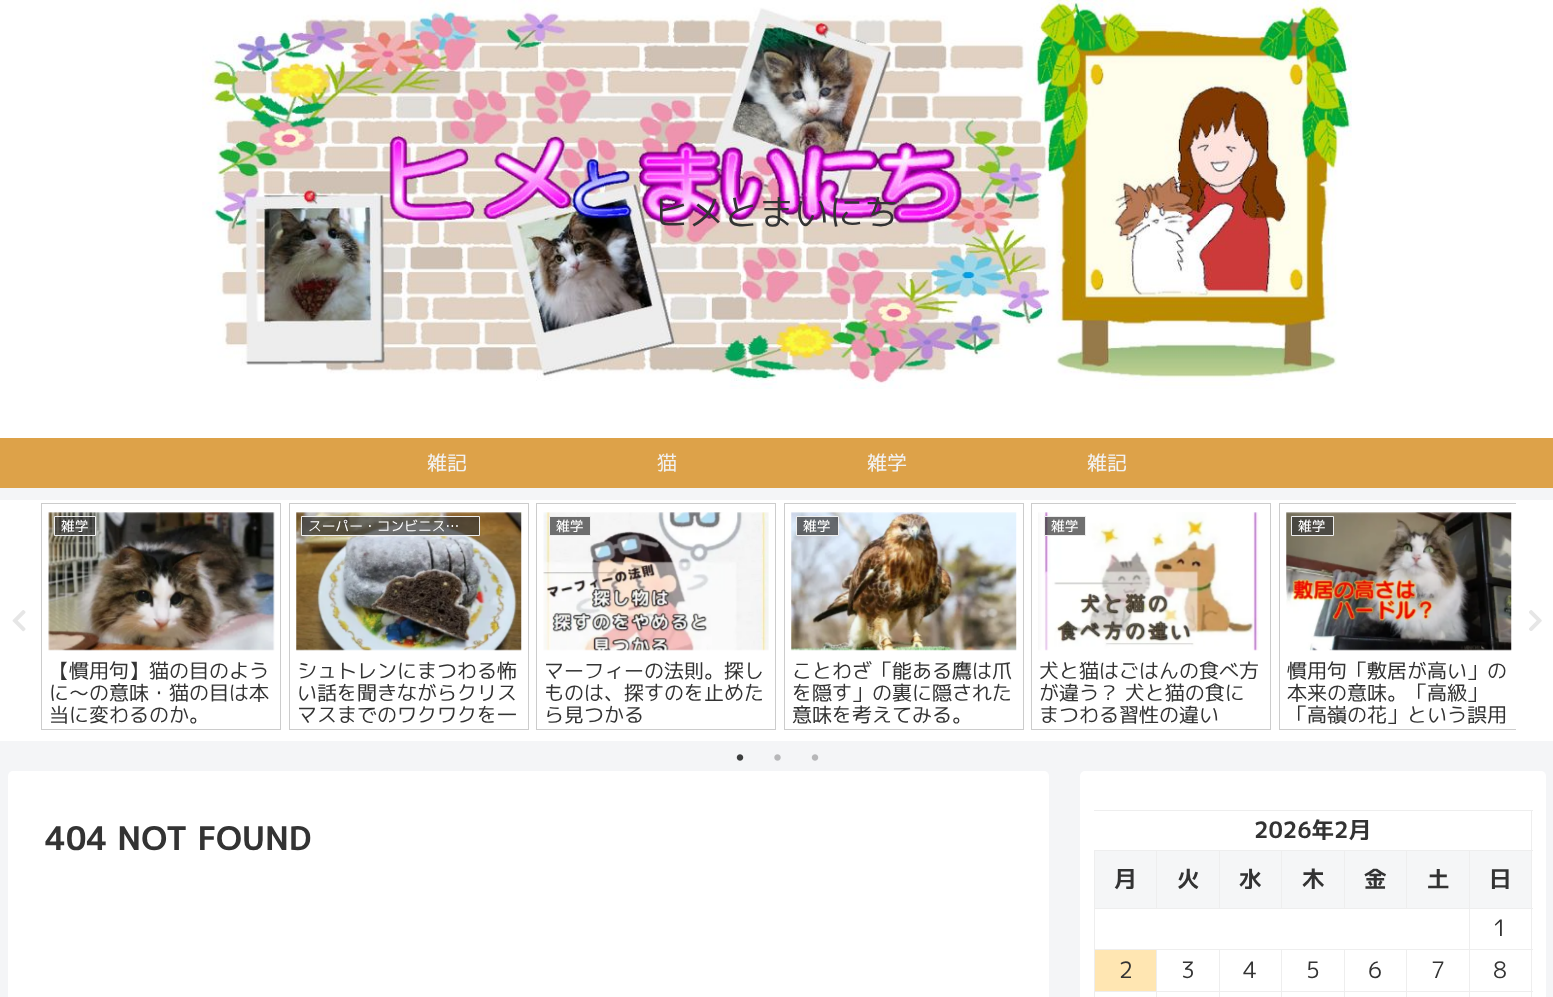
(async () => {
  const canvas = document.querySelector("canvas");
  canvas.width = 1553;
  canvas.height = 997;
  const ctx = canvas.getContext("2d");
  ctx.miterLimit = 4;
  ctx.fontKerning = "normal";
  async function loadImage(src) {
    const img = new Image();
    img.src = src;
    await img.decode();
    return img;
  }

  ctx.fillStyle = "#f4f5f7";
  ctx.fillRect(0, 0, 1553, 997);
  ctx.fillStyle = "#ffffff";
  ctx.fillRect(0, 0, 1553, 438);
  ctx.drawImage(await loadImage("img/1.png"), 202, 0, 1150, 389);
  ctx.fillStyle = "#dda249";
  ctx.fillRect(0, 438, 1553, 50);
  ctx.fillStyle = "#ffffff";
  ctx.fillRect(0, 500, 1553, 241);
  ctx.drawImage(await loadImage("img/2.png"), 12, 610, 14, 22);
  ctx.strokeStyle = "#cccccc";
  ctx.strokeRect(41.5, 503.5, 239, 226);
  ctx.drawImage(await loadImage("img/3.png"), 48, 512, 227, 139);
  ctx.fillStyle = "rgba(51, 51, 51, 0.7)";
  ctx.beginPath();
  ctx.rect(54.5, 516.5, 41, 19);
  ctx.fill();
  ctx.strokeStyle = "#eeeeee";
  ctx.stroke();
  ctx.strokeStyle = "#cccccc";
  ctx.strokeRect(289.5, 503.5, 239, 226);
  ctx.drawImage(await loadImage("img/4.png"), 296, 512, 226, 139);
  ctx.beginPath();
  ctx.rect(301.5, 516.5, 178, 19);
  ctx.fill();
  ctx.strokeStyle = "#eeeeee";
  ctx.stroke();
  ctx.strokeStyle = "#cccccc";
  ctx.strokeRect(536.5, 503.5, 239, 226);
  ctx.drawImage(await loadImage("img/5.png"), 543, 512, 226, 139);
  ctx.beginPath();
  ctx.rect(549.5, 516.5, 41, 19);
  ctx.fill();
  ctx.strokeStyle = "#eeeeee";
  ctx.stroke();
  ctx.strokeStyle = "#cccccc";
  ctx.strokeRect(784.5, 503.5, 239, 226);
  ctx.drawImage(await loadImage("img/6.png"), 791, 512, 226, 139);
  ctx.beginPath();
  ctx.rect(796.5, 516.5, 42, 19);
  ctx.fill();
  ctx.strokeStyle = "#eeeeee";
  ctx.stroke();
  ctx.strokeStyle = "#cccccc";
  ctx.strokeRect(1031.5, 503.5, 239, 226);
  ctx.drawImage(await loadImage("img/7.png"), 1038, 512, 221, 139);
  ctx.beginPath();
  ctx.rect(1044.5, 516.5, 41, 19);
  ctx.fill();
  ctx.strokeStyle = "#eeeeee";
  ctx.stroke();
  ctx.save();
  ctx.beginPath();
  ctx.rect(38, 503, 1478, 231);
  ctx.clip();
  ctx.strokeStyle = "#cccccc";
  ctx.strokeRect(1279.5, 503.5, 239, 226);
  ctx.restore();
  ctx.drawImage(await loadImage("img/8.png"), 1286, 512, 226, 139);
  ctx.beginPath();
  ctx.rect(1291.5, 516.5, 42, 19);
  ctx.fill();
  ctx.stroke();
  ctx.drawImage(await loadImage("img/9.png"), 1529, 610, 13, 21);
  ctx.drawImage(await loadImage("img/10.png"), 736, 754, 8, 7);
  ctx.drawImage(await loadImage("img/11.png"), 774, 754, 7, 7);
  ctx.drawImage(await loadImage("img/12.png"), 811, 754, 8, 7);
  ctx.fillStyle = "#ffffff";
  ctx.beginPath();
  ctx.roundRect(8, 771, 1041, 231, 5);
  ctx.fill();
  ctx.beginPath();
  ctx.roundRect(1080, 771, 466, 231, 5);
  ctx.fill();
  for (const [x, y, w, h, color] of [
    [1094, 810, 439, 1, "#eeeeee"],
    [1531, 810, 1, 187, "#eeeeee"],
    [1095, 851, 61, 57, "#f5f6f7"],
    [1469, 850, 64, 1, "#eeeeee"],
    [1469, 908, 64, 1, "#eeeeee"],
    [1469, 949, 64, 1, "#eeeeee"],
    [1469, 991, 64, 1, "#eeeeee"],
    [1469, 991, 1, 6, "#eeeeee"],
    [1406, 991, 64, 1, "#eeeeee"],
    [1469, 949, 1, 44, "#eeeeee"],
    [1406, 949, 64, 1, "#eeeeee"],
    [1469, 908, 1, 42, "#eeeeee"],
    [1094, 908, 376, 1, "#eeeeee"],
    [1469, 850, 1, 59, "#eeeeee"],
    [1406, 850, 64, 1, "#eeeeee"],
    [1406, 850, 1, 59, "#eeeeee"],
    [1344, 850, 64, 1, "#eeeeee"],
    [1344, 850, 1, 59, "#eeeeee"],
    [1281, 850, 64, 1, "#eeeeee"],
    [1281, 850, 1, 59, "#eeeeee"],
    [1219, 850, 64, 1, "#eeeeee"],
    [1219, 850, 1, 59, "#eeeeee"],
    [1156, 850, 64, 1, "#eeeeee"],
    [1156, 850, 1, 59, "#eeeeee"],
    [1094, 850, 64, 1, "#eeeeee"],
    [1406, 991, 1, 6, "#eeeeee"],
    [1344, 991, 64, 1, "#eeeeee"],
    [1406, 949, 1, 44, "#eeeeee"],
    [1344, 949, 64, 1, "#eeeeee"],
    [1344, 991, 1, 6, "#eeeeee"],
    [1281, 991, 64, 1, "#eeeeee"],
    [1344, 949, 1, 44, "#eeeeee"],
    [1281, 949, 64, 1, "#eeeeee"],
    [1281, 991, 1, 6, "#eeeeee"],
    [1219, 991, 64, 1, "#eeeeee"],
    [1281, 949, 1, 44, "#eeeeee"],
    [1219, 949, 64, 1, "#eeeeee"],
    [1219, 991, 1, 6, "#eeeeee"],
    [1156, 991, 64, 1, "#eeeeee"],
    [1219, 949, 1, 44, "#eeeeee"],
    [1156, 949, 64, 1, "#eeeeee"],
    [1156, 991, 1, 6, "#eeeeee"],
    [1094, 991, 64, 1, "#eeeeee"],
    [1156, 949, 1, 44, "#eeeeee"],
    [1094, 949, 64, 1, "#eeeeee"],
    [1094, 991, 1, 6, "#eeeeee"],
    [1094, 949, 1, 44, "#eeeeee"],
    [1094, 908, 1, 42, "#eeeeee"],
    [1094, 850, 1, 59, "#eeeeee"],
    [1157, 851, 62, 57, "#f5f6f7"],
    [1220, 851, 61, 57, "#f5f6f7"],
    [1282, 851, 62, 57, "#f5f6f7"],
    [1345, 851, 61, 57, "#f5f6f7"],
    [1407, 851, 62, 57, "#f5f6f7"],
    [1470, 851, 61, 57, "#f5f6f7"],
    [1095, 950, 61, 41, "#ffe6b2"],
  ]) {
    ctx.fillStyle = color;
    ctx.fillRect(x, y, w, h);
  }
  ctx.font = "35px 'M PLUS 1p'";
  ctx.fillStyle = "#333333";
  ctx.fillText("ヒメとまいにち", 654, 225);
  ctx.font = "20px 'M PLUS 1p'";
  ctx.fillStyle = "#f2f2f2";
  for (const [text, x, y] of [
    ["雑記", 427, 470],
    ["猫", 657, 470],
    ["雑学", 867, 470],
    ["雑記", 1087, 470],
  ]) {
    ctx.fillText(text, x, y);
  }
  ctx.font = "13.75px 'M PLUS 1p'";
  ctx.fillStyle = "#ffffff";
  ctx.fillText("雑学", 61, 531);
  ctx.font = "20px 'M PLUS 1p'";
  ctx.fillStyle = "#333333";
  for (const [text, x, y] of [
    ["【慣用句】猫の目のよう", 49, 678],
    ["に～の意味・猫の目は本", 49, 700],
    ["当に変わるのか。", 49, 722],
  ]) {
    ctx.fillText(text, x, y);
  }
  ctx.font = "13.75px 'M PLUS 1p'";
  ctx.fillStyle = "#ffffff";
  ctx.fillText("スーパー・コンビニス…", 308, 531);
  ctx.font = "20px 'M PLUS 1p'";
  ctx.fillStyle = "#333333";
  for (const [text, x, y] of [
    ["シュトレンにまつわる怖", 297, 678],
    ["い話を聞きながらクリス", 297, 700],
    ["マスまでのワクワクを一", 297, 722],
  ]) {
    ctx.fillText(text, x, y);
  }
  ctx.font = "13.75px 'M PLUS 1p'";
  ctx.fillStyle = "#ffffff";
  ctx.fillText("雑学", 556, 531);
  ctx.font = "20px 'M PLUS 1p'";
  ctx.fillStyle = "#333333";
  for (const [text, x, y] of [
    ["マーフィーの法則。探し", 544, 678],
    ["ものは、探すのを止めた", 544, 700],
    ["ら見つかる", 544, 722],
  ]) {
    ctx.fillText(text, x, y);
  }
  ctx.font = "13.75px 'M PLUS 1p'";
  ctx.fillStyle = "#ffffff";
  ctx.fillText("雑学", 803, 531);
  ctx.font = "20px 'M PLUS 1p'";
  ctx.fillStyle = "#333333";
  for (const [text, x, y] of [
    ["ことわざ「能ある鷹は爪", 792, 678],
    ["を隠す」の裏に隠された", 792, 700],
    ["意味を考えてみる。", 792, 722],
  ]) {
    ctx.fillText(text, x, y);
  }
  ctx.font = "13.75px 'M PLUS 1p'";
  ctx.fillStyle = "#ffffff";
  ctx.fillText("雑学", 1051, 531);
  ctx.font = "20px 'M PLUS 1p'";
  ctx.fillStyle = "#333333";
  for (const [text, x, y] of [
    ["犬と猫はごはんの食べ方", 1039, 678],
    ["が違う？ 犬と猫の食に", 1039, 700],
    ["まつわる習性の違い", 1039, 722],
  ]) {
    ctx.fillText(text, x, y);
  }
  ctx.font = "13.75px 'M PLUS 1p'";
  ctx.fillStyle = "#ffffff";
  ctx.fillText("雑学", 1298, 531);
  ctx.font = "20px 'M PLUS 1p'";
  ctx.fillStyle = "#333333";
  ctx.fillText("慣用句「敷居が高い」の", 1287, 678);
  ctx.fillText("本来の意味。「高級」", 1287, 700);
  ctx.save();
  ctx.beginPath();
  ctx.rect(1286, 660, 225, 64);
  ctx.clip();
  ctx.fillText("「高嶺の花」という誤用", 1287, 722);
  ctx.restore();
  ctx.font = "bold 32.5px 'M PLUS 1p'";
  ctx.fillText("404 NOT FOUND", 45, 850);
  ctx.font = "bold 22.5px 'M PLUS 1p'";
  for (const [text, x, y] of [
    ["2026年2月", 1254, 838],
    ["月", 1114, 887],
    ["火", 1177, 887],
    ["水", 1239, 887],
    ["木", 1302, 887],
    ["金", 1364, 887],
    ["土", 1427, 887],
    ["日", 1489, 887],
  ]) {
    ctx.fillText(text, x, y);
  }
  ctx.font = "22.5px 'M PLUS 1p'";
  for (const [text, x, y] of [
    ["1", 1493, 936],
    ["2", 1119, 978],
    ["3", 1181, 978],
    ["4", 1243, 978],
    ["5", 1306, 978],
    ["6", 1368, 978],
    ["7", 1431, 978],
    ["8", 1493, 978],
  ]) {
    ctx.fillText(text, x, y);
  }
})();
